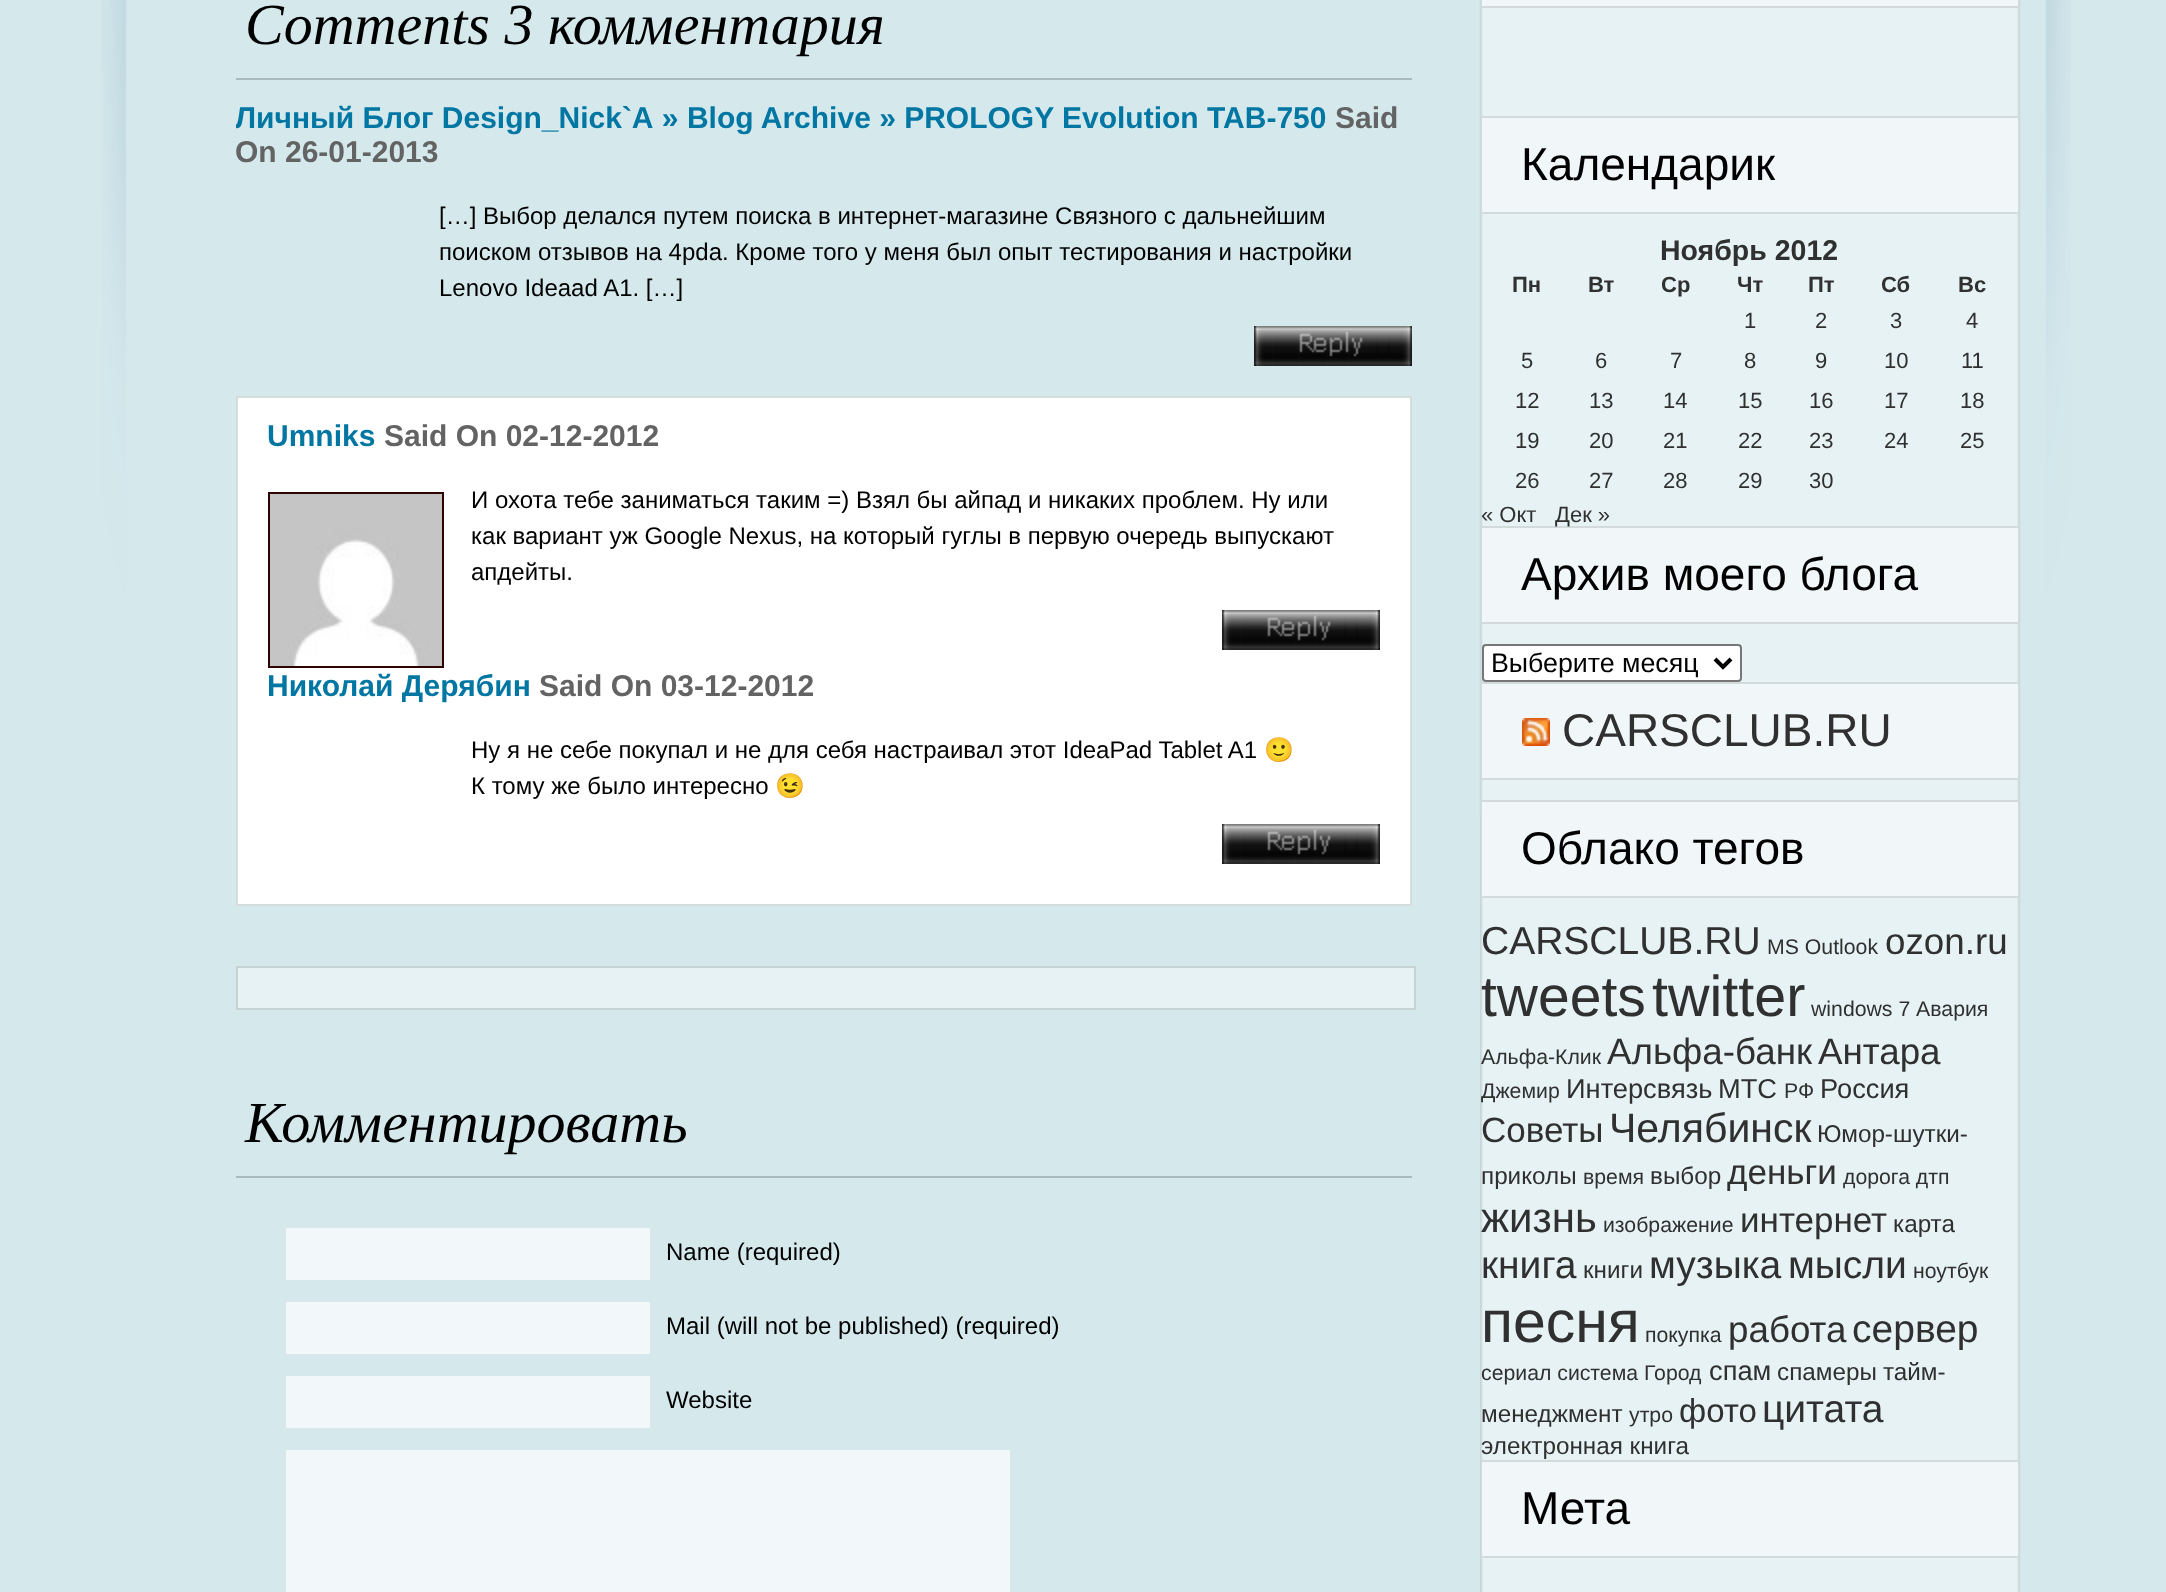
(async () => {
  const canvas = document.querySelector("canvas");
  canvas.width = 2166;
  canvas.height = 1592;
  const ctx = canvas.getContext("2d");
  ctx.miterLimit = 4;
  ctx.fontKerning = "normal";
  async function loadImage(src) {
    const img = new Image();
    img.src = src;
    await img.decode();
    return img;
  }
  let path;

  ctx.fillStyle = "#d5e9ed";
  ctx.fillRect(0, 0, 2166, 1592);
  ctx.drawImage(await loadImage("img/1.png"), 1480, 814, 541, 778);
  ctx.drawImage(await loadImage("img/2.png"), 101, 0, 1970, 814);
  ctx.fillStyle = "#aababe";
  ctx.fillRect(236, 78, 1176, 2);
  ctx.drawImage(await loadImage("img/3.png"), 1254, 326, 158, 40);
  ctx.fillStyle = "#ffffff";
  ctx.beginPath();
  ctx.rect(237, 397, 1174, 508);
  ctx.fill();
  ctx.strokeStyle = "#d4dcdd";
  ctx.lineWidth = 2;
  ctx.stroke();
  ctx.strokeStyle = "#2c0202";
  ctx.strokeRect(269, 493, 174, 174);
  ctx.drawImage(await loadImage("img/4.png"), 270, 494, 172, 172);
  ctx.drawImage(await loadImage("img/3.png"), 1222, 610, 158, 40);
  ctx.drawImage(await loadImage("img/3.png"), 1222, 824, 158, 40);
  ctx.fillStyle = "#e6f2f4";
  ctx.beginPath();
  ctx.rect(237, 967, 1178, 42);
  ctx.fill();
  ctx.strokeStyle = "#c6d2d4";
  ctx.stroke();
  for (const [x, y, w, h, color] of [
    [236, 1176, 1176, 2, "#aababe"],
    [286, 1228, 364, 52, "#f2f8fa"],
    [286, 1302, 364, 52, "#f2f8fa"],
    [286, 1376, 364, 52, "#f2f8fa"],
    [286, 1450, 724, 142, "#f2f8fa"],
    [1482, 0, 536, 6, "#f1f7f9"],
    [1482, 6, 536, 2, "#d3dadc"],
    [1482, 118, 536, 94, "#f1f7f9"],
    [1482, 116, 536, 2, "#d3dadc"],
    [1482, 212, 536, 2, "#d3dadc"],
    [1482, 528, 536, 94, "#f1f7f9"],
    [1482, 526, 536, 2, "#d3dadc"],
    [1482, 622, 536, 2, "#d3dadc"],
  ]) {
    ctx.fillStyle = color;
    ctx.fillRect(x, y, w, h);
  }
  ctx.fillStyle = "#ffffff";
  ctx.beginPath();
  ctx.roundRect(1483, 645, 258, 36, 3);
  ctx.fill();
  ctx.strokeStyle = "#767676";
  ctx.stroke();
  path = new Path2D("M1715 659L1723 667L1731 659");
  ctx.strokeStyle = "#000000";
  ctx.lineWidth = 4;
  ctx.stroke(path);
  for (const [x, y, w, h, color] of [
    [1482, 684, 536, 94, "#f1f7f9"],
    [1482, 682, 536, 2, "#d3dadc"],
    [1482, 778, 536, 2, "#d3dadc"],
  ]) {
    ctx.fillStyle = color;
    ctx.fillRect(x, y, w, h);
  }
  ctx.drawImage(await loadImage("img/5.png"), 1522, 718, 28, 28);
  for (const [x, y, w, h, color] of [
    [1482, 802, 536, 94, "#f1f7f9"],
    [1482, 800, 536, 2, "#d3dadc"],
    [1482, 896, 536, 2, "#d3dadc"],
    [1482, 1462, 536, 94, "#f1f7f9"],
    [1482, 1460, 536, 2, "#d3dadc"],
    [1482, 1556, 536, 2, "#d3dadc"],
  ]) {
    ctx.fillStyle = color;
    ctx.fillRect(x, y, w, h);
  }
  ctx.font = "italic 58px Liberation Serif";
  ctx.fillStyle = "#000000";
  ctx.fillText("Comments 3 комментария", 245, 44);
  ctx.save();
  ctx.beginPath();
  ctx.rect(236, 100, 1176, 266);
  ctx.clip();
  ctx.font = "bold 30px Liberation Sans";
  ctx.fillStyle = "#0076a3";
  ctx.fillText("Личный Блог Design_Nick`А » Blog Archive » PROLOGY Evolution TAB-750", 235, 128);
  ctx.restore();
  ctx.font = "bold 30px Liberation Sans";
  ctx.fillStyle = "#636363";
  ctx.fillText("Said", 1335, 128);
  ctx.fillText("On 26-01-2013", 235, 162);
  ctx.font = "24px Liberation Sans";
  ctx.fillStyle = "#000000";
  for (const [text, x, y] of [
    ["[…] Выбор делался путем поиска в интернет-магазине Связного с дальнейшим", 439, 224],
    ["поиском отзывов на 4pda. Кроме того у меня был опыт тестирования и настройки", 439, 260],
    ["Lenovo Ideaad A1. […]", 439, 296],
  ]) {
    ctx.fillText(text, x, y);
  }
  ctx.font = "bold 30px Liberation Sans";
  ctx.fillStyle = "#0076a3";
  ctx.fillText("Umniks", 267, 446);
  ctx.fillStyle = "#636363";
  ctx.fillText("Said On 02-12-2012", 384, 446);
  ctx.font = "24px Liberation Sans";
  ctx.fillStyle = "#000000";
  for (const [text, x, y] of [
    ["И охота тебе заниматься таким =) Взял бы айпад и никаких проблем. Ну или", 471, 508],
    ["как вариант уж Google Nexus, на который гуглы в первую очередь выпускают", 471, 544],
    ["апдейты.", 471, 580],
  ]) {
    ctx.fillText(text, x, y);
  }
  ctx.font = "bold 30px Liberation Sans";
  ctx.fillStyle = "#0076a3";
  ctx.fillText("Николай Дерябин", 267, 696);
  ctx.fillStyle = "#636363";
  ctx.fillText("Said On 03-12-2012", 539, 696);
  ctx.font = "24px Liberation Sans";
  ctx.fillStyle = "#000000";
  ctx.fillText("Ну я не себе покупал и не для себя настраивал этот IdeaPad Tablet A1", 471, 758);
  ctx.font = "24px Noto Color Emoji";
  ctx.fillText("🙂", 1264, 758);
  ctx.font = "24px Liberation Sans";
  ctx.fillText("К тому же было интересно", 471, 794);
  ctx.font = "24px Noto Color Emoji";
  ctx.fillText("😉", 775, 794);
  ctx.font = "italic 58px Liberation Serif";
  ctx.fillText("Комментировать", 245, 1142);
  ctx.font = "24px Liberation Sans";
  for (const [text, x, y] of [
    ["Name (required)", 666, 1260],
    ["Mail (will not be published) (required)", 666, 1334],
    ["Website", 666, 1408],
  ]) {
    ctx.fillText(text, x, y);
  }
  ctx.font = "46px Liberation Sans";
  ctx.fillText("Календарик", 1521, 180);
  ctx.font = "bold 28.5px Liberation Sans";
  ctx.fillStyle = "#303030";
  ctx.fillText("Ноябрь 2012", 1660, 260);
  ctx.font = "bold 22px Liberation Sans";
  for (const [text, x, y] of [
    ["Пн", 1512, 292],
    ["Вт", 1588, 292],
    ["Ср", 1661, 292],
    ["Чт", 1737, 292],
    ["Пт", 1808, 292],
    ["Сб", 1881, 292],
    ["Вс", 1958, 292],
  ]) {
    ctx.fillText(text, x, y);
  }
  ctx.font = "22px Liberation Sans";
  for (const [text, x, y] of [
    ["1", 1744, 328],
    ["2", 1815, 328],
    ["3", 1890, 328],
    ["4", 1966, 328],
    ["5", 1521, 368],
    ["6", 1595, 368],
    ["7", 1670, 368],
    ["8", 1744, 368],
    ["9", 1815, 368],
    ["10", 1884, 368],
    ["11", 1961, 368],
    ["12", 1515, 408],
    ["13", 1589, 408],
    ["14", 1663, 408],
    ["15", 1738, 408],
    ["16", 1809, 408],
    ["17", 1884, 408],
    ["18", 1960, 408],
    ["19", 1515, 448],
    ["20", 1589, 448],
    ["21", 1663, 448],
    ["22", 1738, 448],
    ["23", 1809, 448],
    ["24", 1884, 448],
    ["25", 1960, 448],
    ["26", 1515, 488],
    ["27", 1589, 488],
    ["28", 1663, 488],
    ["29", 1738, 488],
    ["30", 1809, 488],
    ["« Окт", 1481, 522],
    ["Дек »", 1555, 522],
  ]) {
    ctx.fillText(text, x, y);
  }
  ctx.font = "46px Liberation Sans";
  ctx.fillStyle = "#000000";
  ctx.fillText("Архив моего блога", 1521, 590);
  ctx.font = "26.75px Liberation Sans";
  ctx.fillText("Выберите месяц", 1491, 672);
  ctx.font = "46px Liberation Sans";
  ctx.fillStyle = "#303030";
  ctx.fillText("CARSCLUB.RU", 1562, 746);
  ctx.fillStyle = "#000000";
  ctx.fillText("Облако тегов", 1521, 864);
  ctx.font = "39px Liberation Sans";
  ctx.fillStyle = "#303030";
  ctx.fillText("CARSCLUB.RU", 1481, 954);
  ctx.font = "21.25px Liberation Sans";
  ctx.fillText("MS Outlook", 1767, 954);
  ctx.font = "36.75px Liberation Sans";
  ctx.fillText("ozon.ru", 1885, 954);
  ctx.font = "57px Liberation Sans";
  ctx.fillText("tweets", 1481, 1016);
  ctx.font = "57.5px Liberation Sans";
  ctx.fillText("twitter", 1652, 1016);
  ctx.font = "21.25px Liberation Sans";
  ctx.fillText("windows 7 Авария", 1811, 1016);
  ctx.fillText("Альфа-Клик", 1481, 1064);
  ctx.font = "36.75px Liberation Sans";
  ctx.fillText("Альфа-банк", 1607, 1064);
  ctx.fillText("Антара", 1818, 1064);
  ctx.font = "21.25px Liberation Sans";
  ctx.fillText("Джемир", 1481, 1098);
  ctx.font = "27.25px Liberation Sans";
  ctx.fillText("Интерсвязь", 1566, 1098);
  ctx.fillText("МТС", 1718, 1098);
  ctx.font = "21.25px Liberation Sans";
  ctx.fillText("РФ", 1784, 1098);
  ctx.font = "27.25px Liberation Sans";
  ctx.fillText("Россия", 1820, 1098);
  ctx.font = "35px Liberation Sans";
  ctx.fillText("Советы", 1481, 1142);
  ctx.font = "41px Liberation Sans";
  ctx.fillText("Челябинск", 1609, 1142);
  ctx.font = "24.25px Liberation Sans";
  ctx.fillText("Юмор-шутки-", 1817, 1142);
  ctx.fillText("приколы", 1481, 1184);
  ctx.font = "21.25px Liberation Sans";
  ctx.fillText("время", 1583, 1184);
  ctx.font = "24.25px Liberation Sans";
  ctx.fillText("выбор", 1650, 1184);
  ctx.font = "35px Liberation Sans";
  ctx.fillText("деньги", 1727, 1184);
  ctx.font = "21.25px Liberation Sans";
  ctx.fillText("дорога дтп", 1843, 1184);
  ctx.font = "42px Liberation Sans";
  ctx.fillText("жизнь", 1481, 1232);
  ctx.font = "21.25px Liberation Sans";
  ctx.fillText("изображение", 1603, 1232);
  ctx.font = "35px Liberation Sans";
  ctx.fillText("интернет", 1740, 1232);
  ctx.font = "24.25px Liberation Sans";
  ctx.fillText("карта", 1893, 1232);
  ctx.font = "39px Liberation Sans";
  ctx.fillText("книга", 1481, 1278);
  ctx.font = "24.25px Liberation Sans";
  ctx.fillText("книги", 1583, 1278);
  ctx.font = "39px Liberation Sans";
  ctx.fillText("музыка", 1649, 1278);
  ctx.fillText("мысли", 1788, 1278);
  ctx.font = "21.25px Liberation Sans";
  ctx.fillText("ноутбук", 1913, 1278);
  ctx.font = "59px Liberation Sans";
  ctx.fillText("песня", 1481, 1342);
  ctx.font = "21.25px Liberation Sans";
  ctx.fillText("покупка", 1645, 1342);
  ctx.font = "36.75px Liberation Sans";
  ctx.fillText("работа", 1728, 1342);
  ctx.font = "39px Liberation Sans";
  ctx.fillText("сервер", 1852, 1342);
  ctx.font = "21.25px Liberation Sans";
  ctx.fillText("сериал система Город", 1481, 1380);
  ctx.font = "27.25px Liberation Sans";
  ctx.fillText("спам", 1709, 1380);
  ctx.font = "24.25px Liberation Sans";
  for (const [text, x, y] of [
    ["спамеры", 1777, 1380],
    ["тайм-", 1883, 1380],
    ["менеджмент", 1481, 1422],
  ]) {
    ctx.fillText(text, x, y);
  }
  ctx.font = "21.25px Liberation Sans";
  ctx.fillText("утро", 1629, 1422);
  ctx.font = "33px Liberation Sans";
  ctx.fillText("фото", 1679, 1422);
  ctx.font = "39px Liberation Sans";
  ctx.fillText("цитата", 1762, 1422);
  ctx.font = "24.25px Liberation Sans";
  ctx.fillText("электронная книга", 1481, 1454);
  ctx.font = "46px Liberation Sans";
  ctx.fillStyle = "#000000";
  ctx.fillText("Мета", 1521, 1524);
})();
